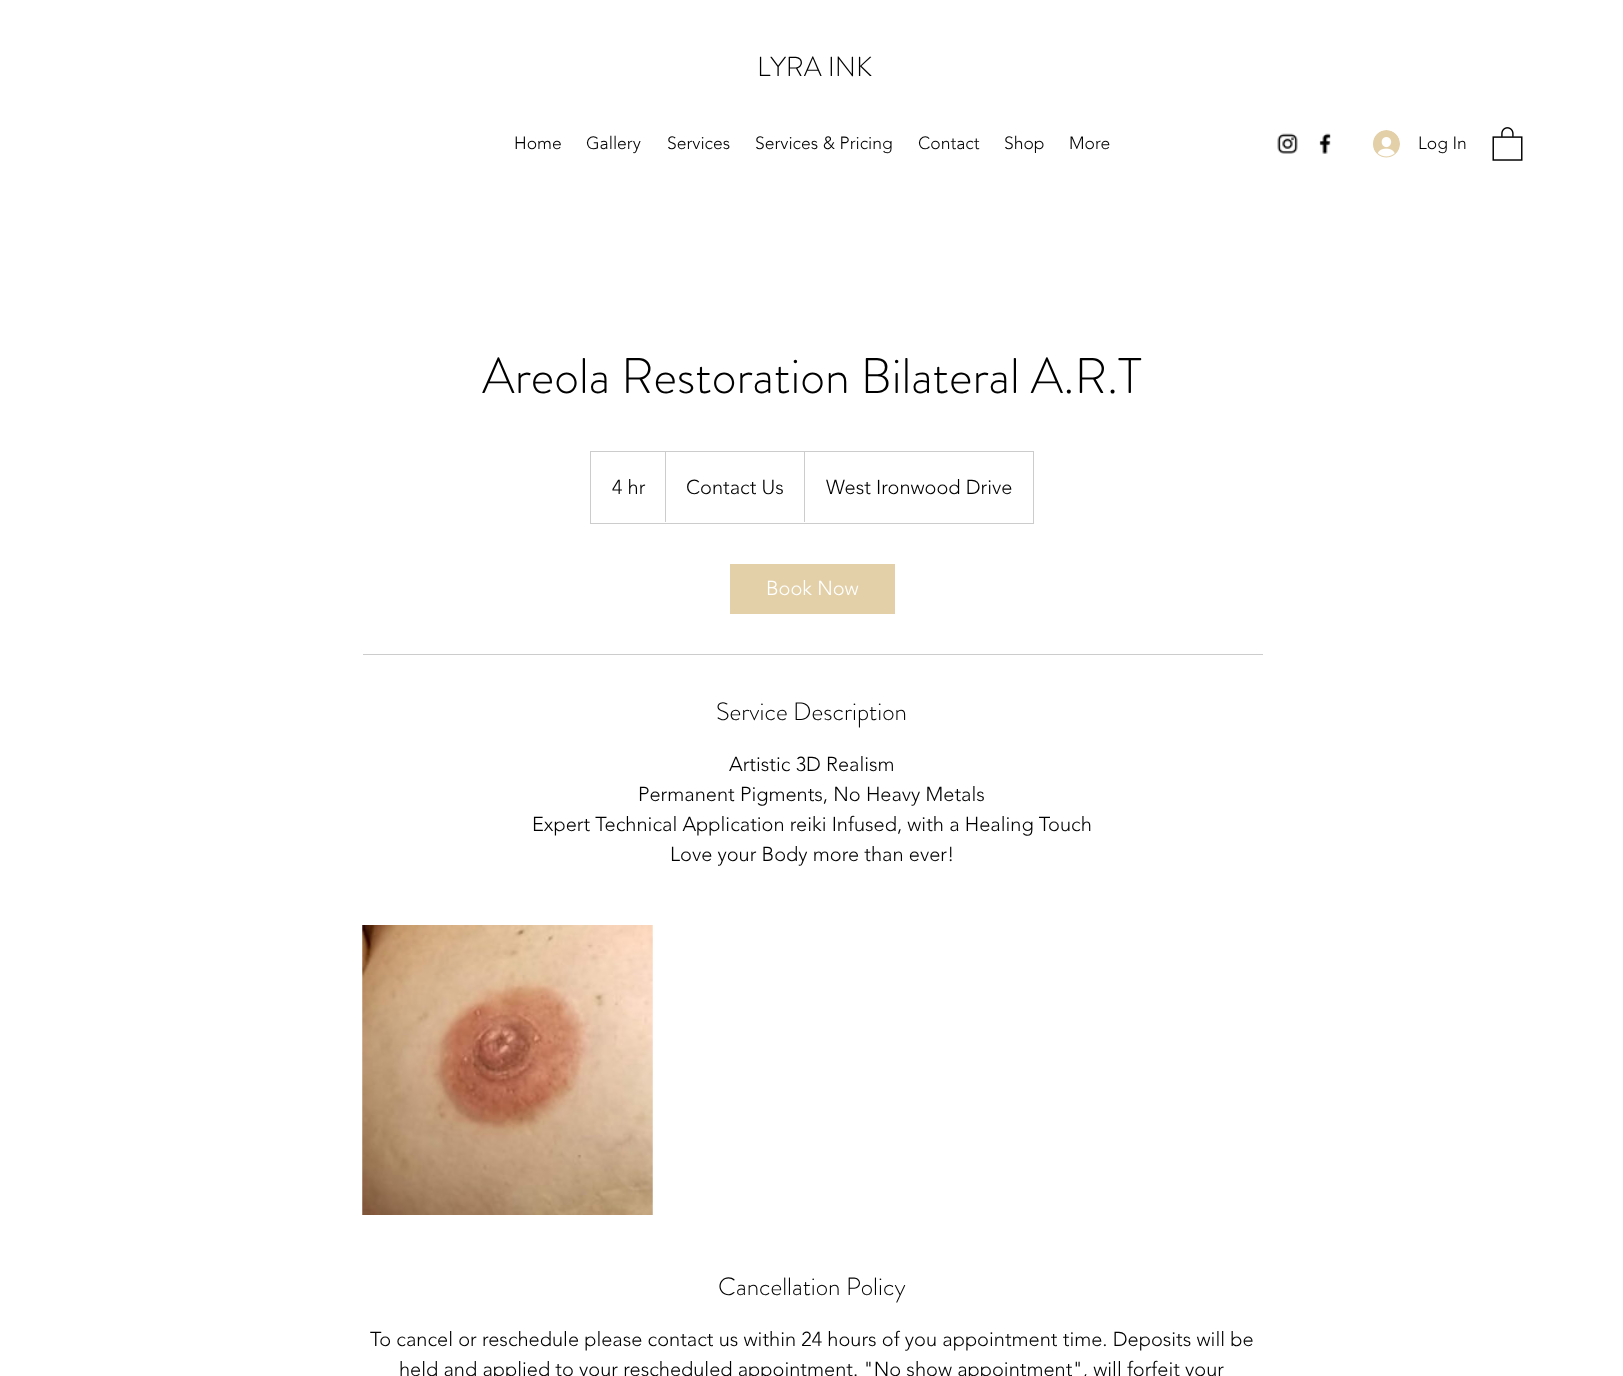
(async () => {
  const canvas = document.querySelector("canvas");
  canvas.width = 1623;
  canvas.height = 1376;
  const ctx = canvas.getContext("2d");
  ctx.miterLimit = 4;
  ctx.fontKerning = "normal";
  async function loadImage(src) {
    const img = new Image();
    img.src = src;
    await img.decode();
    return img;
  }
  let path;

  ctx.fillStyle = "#ffffff";
  ctx.fillRect(0, 0, 1623, 1376);
  ctx.drawImage(await loadImage("img/1.png"), 1277, 133, 21, 21);
  ctx.drawImage(await loadImage("img/2.png"), 1319, 133, 12, 21);
  ctx.drawImage(await loadImage("img/3.png"), 1373, 130, 27, 28);
  ctx.drawImage(await loadImage("img/4.png"), 1492, 127, 31, 34);
  ctx.strokeStyle = "#cccccc";
  ctx.strokeRect(590.5, 451.5, 443, 72);
  ctx.fillStyle = "#cccccc";
  path = new Path2D("M665 522V451L666 452V522Z");
  ctx.fill(path);
  path = new Path2D("M804 522V451L805 452V522Z");
  ctx.fill(path);
  ctx.fillStyle = "#e3d0a8";
  ctx.fillRect(730, 564, 165, 50);
  ctx.fillStyle = "#cccccc";
  ctx.fillRect(363, 654, 900, 1);
  ctx.drawImage(await loadImage("img/5.png"), 362, 925, 291, 290);
  ctx.drawImage(await loadImage("img/6.png"), 362, 925, 291, 290);
  ctx.font = "300 27.5px 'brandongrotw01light'";
  ctx.fillStyle = "#000000";
  ctx.fillText("LYRA INK", 757, 76);
  ctx.font = "300 17.5px 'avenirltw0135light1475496'";
  for (const [text, x, y] of [
    ["Home", 514, 149],
    ["Gallery", 586, 149],
    ["Services", 667, 149],
    ["Services & Pricing", 755, 149],
    ["Contact", 918, 149],
    ["Shop", 1004, 149],
    ["More", 1069, 149],
    ["Log In", 1418, 149],
  ]) {
    ctx.fillText(text, x, y);
  }
  ctx.font = "300 50px 'brandongrotw01light'";
  ctx.fillText("Areola Restoration Bilateral A.R.T", 482, 393);
  ctx.font = "300 20px 'avenirltw0135light1475496'";
  for (const [text, x, y] of [
    ["4 hr", 612, 494],
    ["Contact Us", 686, 494],
    ["West Ironwood Drive", 826, 494],
  ]) {
    ctx.fillText(text, x, y);
  }
  ctx.fillStyle = "#ffffff";
  ctx.fillText("Book Now", 766, 595);
  ctx.font = "300 25px 'brandongrotw01light'";
  ctx.fillStyle = "#000000";
  ctx.fillText("Service Description", 716, 720);
  ctx.font = "300 20px 'avenirltw0135light1475496'";
  for (const [text, x, y] of [
    ["Artistic 3D Realism", 729, 771],
    ["Permanent Pigments, No Heavy Metals", 638, 801],
    ["Expert Technical Application reiki Infused, with a Healing Touch", 532, 831],
    ["Love your Body more than ever!", 670, 861],
  ]) {
    ctx.fillText(text, x, y);
  }
  ctx.font = "300 25px 'brandongrotw01light'";
  ctx.fillText("Cancellation Policy", 718, 1295);
  ctx.font = "300 20px 'avenirltw0135light1475496'";
  ctx.fillText("To cancel or reschedule please contact us within 24 hours of you appointment time. Deposits will be", 370, 1346);
  ctx.fillText("held and applied to your rescheduled appointment. \"No show appointment\", will forfeit your", 399, 1376);
})();
